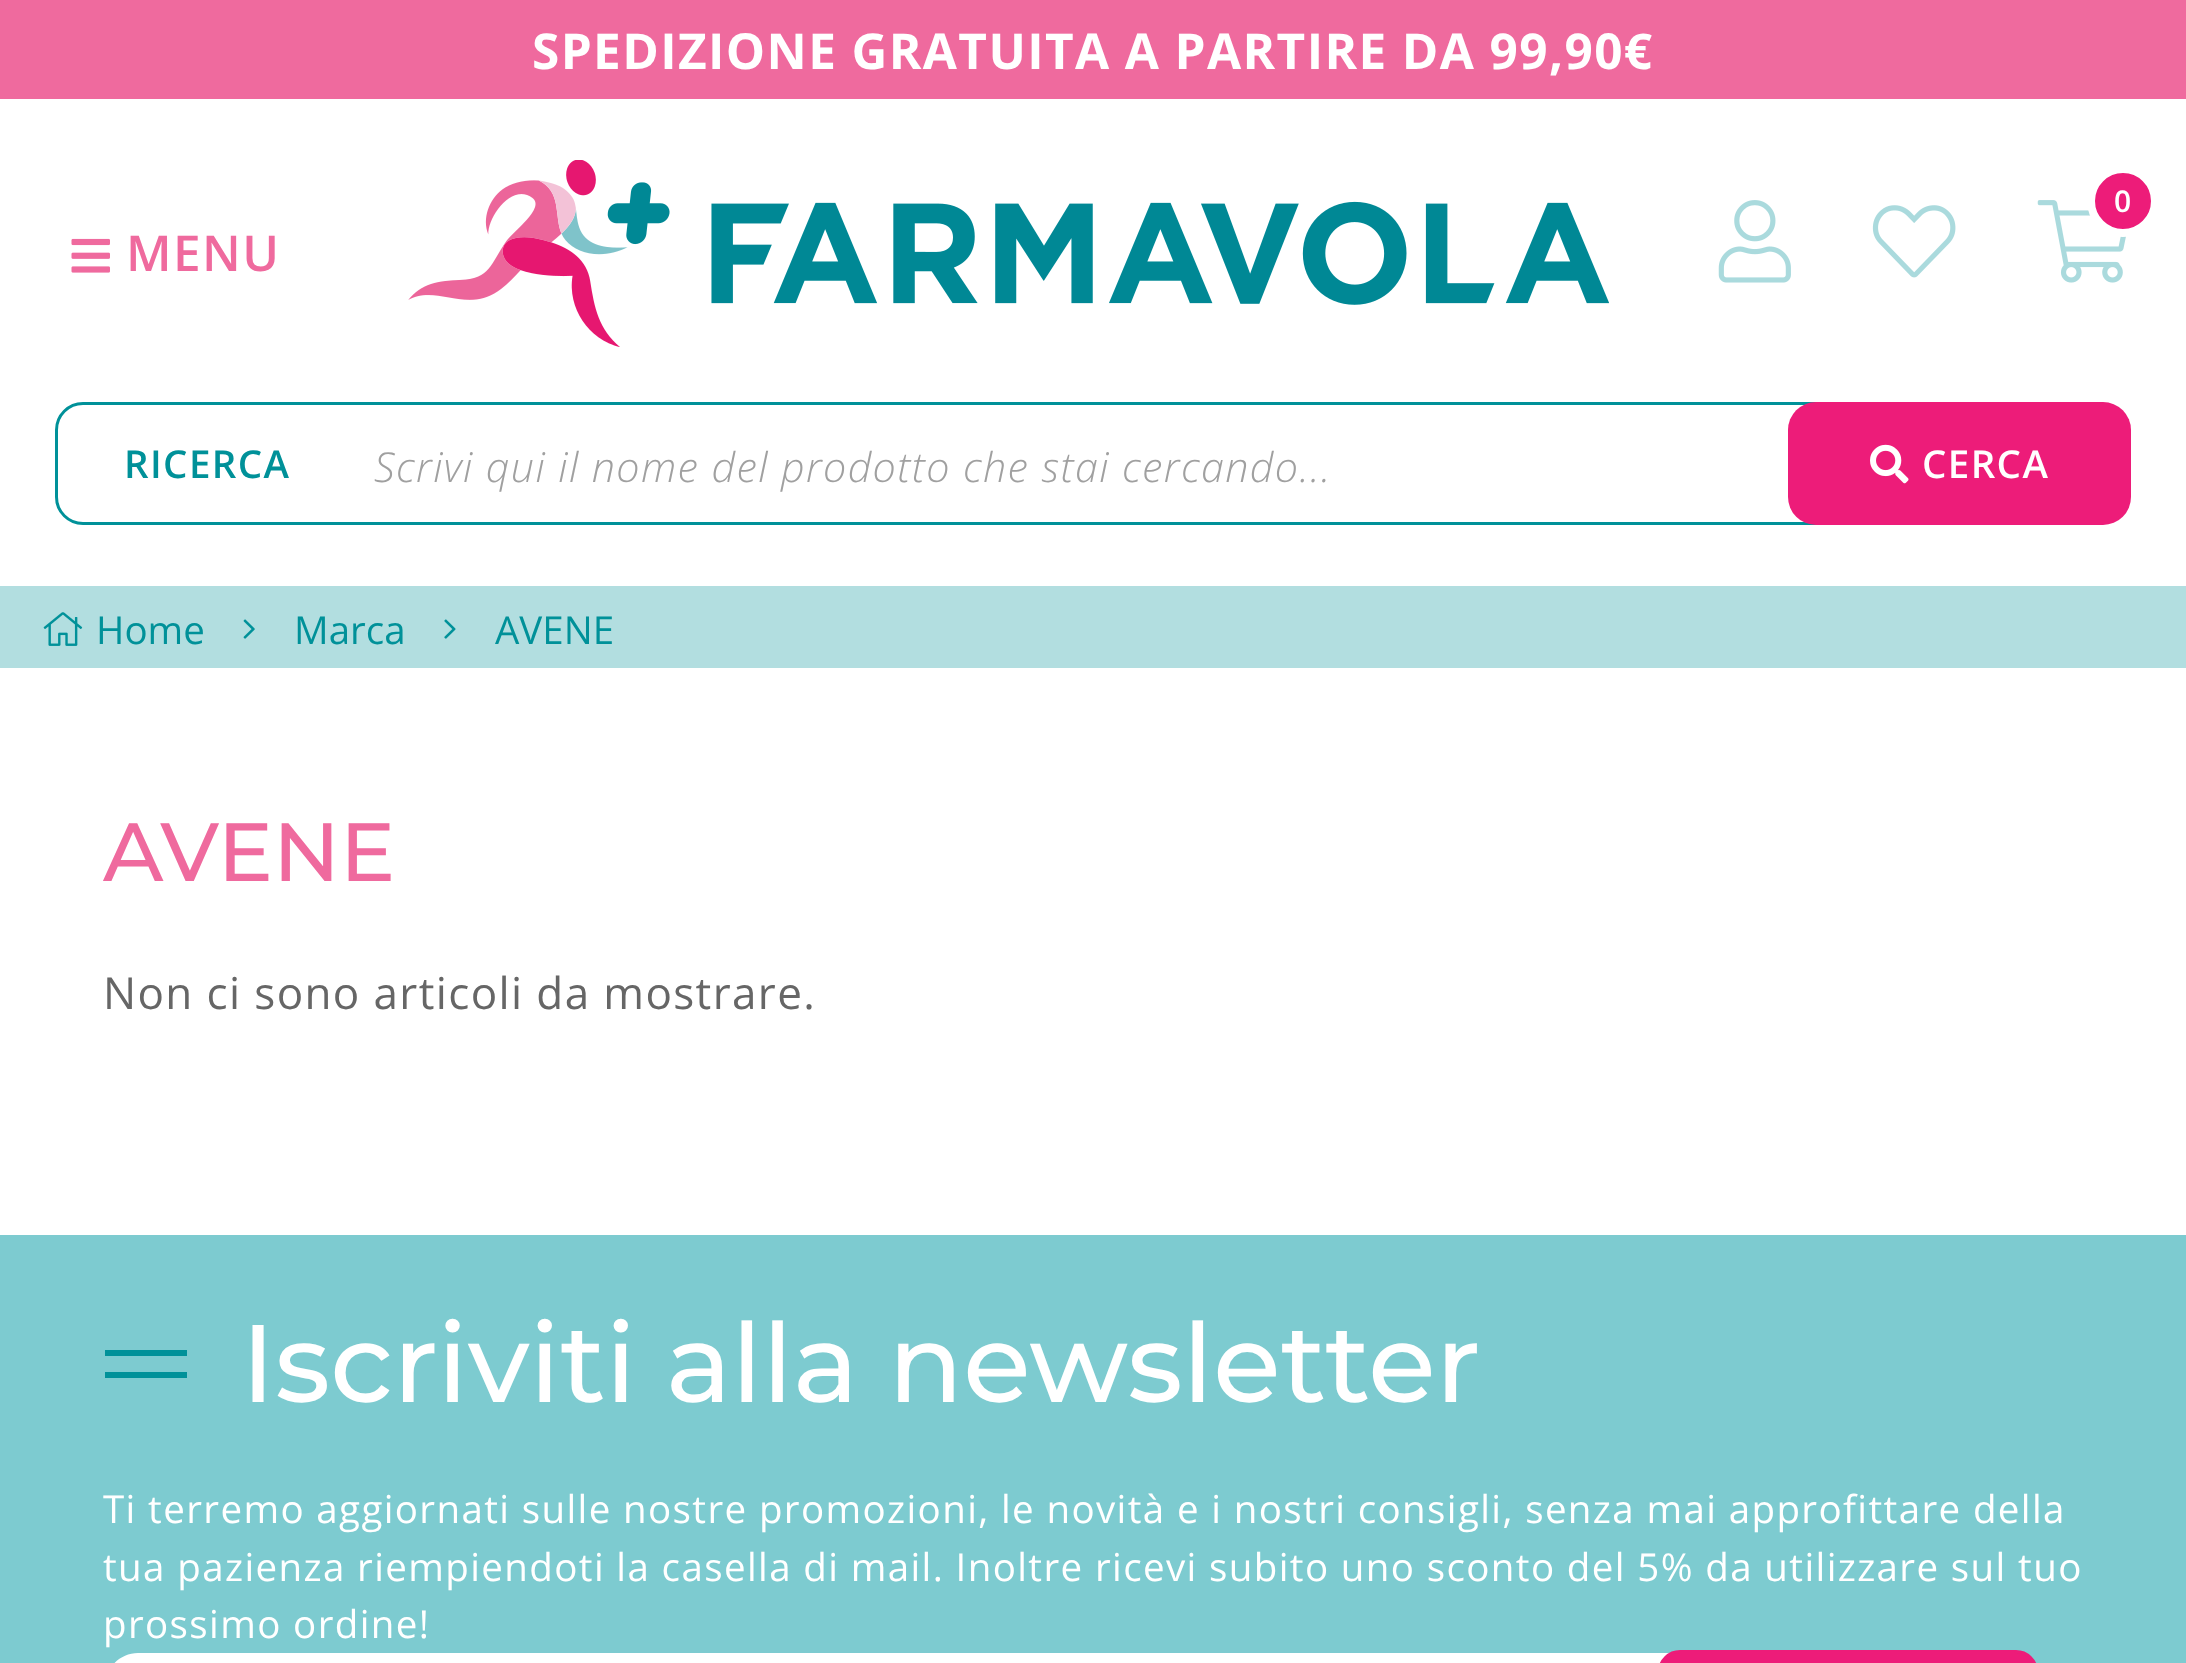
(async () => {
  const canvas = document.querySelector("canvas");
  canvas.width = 2186;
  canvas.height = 1663;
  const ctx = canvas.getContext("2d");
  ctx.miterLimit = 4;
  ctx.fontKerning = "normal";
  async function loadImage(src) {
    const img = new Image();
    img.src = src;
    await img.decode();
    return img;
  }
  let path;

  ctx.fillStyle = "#ffffff";
  ctx.fillRect(0, 0, 2186, 1663);
  ctx.fillStyle = "#ef6a9e";
  ctx.fillRect(0, 0, 2186, 99);
  ctx.drawImage(await loadImage("img/1.png"), 408, 160, 1201, 187);
  ctx.drawImage(await loadImage("img/2.png"), 1718, 200, 73, 83);
  ctx.drawImage(await loadImage("img/3.png"), 1872, 205, 84, 73);
  ctx.drawImage(await loadImage("img/4.png"), 2037, 200, 89, 83);
  ctx.fillStyle = "#ed1c79";
  ctx.beginPath();
  ctx.arc(2123, 201, 32, 0, Math.PI * 2);
  ctx.fill();
  ctx.strokeStyle = "#ffffff";
  ctx.lineWidth = 8;
  ctx.stroke();
  ctx.drawImage(await loadImage("img/5.png"), 71, 238, 39, 35);
  ctx.beginPath();
  ctx.roundRect(56.5, 403.5, 1963, 120, 26.5);
  ctx.strokeStyle = "#009199";
  ctx.lineWidth = 3;
  ctx.stroke();
  ctx.beginPath();
  ctx.roundRect(1788, 402, 343, 123, 28);
  ctx.fill();
  ctx.drawImage(await loadImage("img/6.png"), 1870, 444, 39, 40);
  ctx.fillStyle = "#b2dee0";
  ctx.fillRect(0, 586, 2186, 82);
  ctx.drawImage(await loadImage("img/7.png"), 43, 612, 40, 34);
  ctx.drawImage(await loadImage("img/8.png"), 243, 619, 12, 20);
  ctx.drawImage(await loadImage("img/9.png"), 444, 619, 12, 20);
  for (const [x, y, w, h, color] of [
    [0, 1235, 2186, 428, "#7dcbd0"],
    [105, 1350, 82, 6, "#009199"],
    [105, 1372, 82, 6, "#009199"],
  ]) {
    ctx.fillStyle = color;
    ctx.fillRect(x, y, w, h);
  }
  ctx.fillStyle = "#ffffff";
  path = new Path2D("M138 1653H1837V1663C1837 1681 1822 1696 1804 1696H138C120 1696 105 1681 105 1663V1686C105 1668 120 1653 138 1653Z");
  ctx.fill(path);
  ctx.fillStyle = "#ed1c79";
  ctx.beginPath();
  ctx.roundRect(1659.5, 1651.5, 377, 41, 26.5);
  ctx.fill();
  ctx.strokeStyle = "#ed1c79";
  ctx.stroke();
  ctx.letterSpacing = "1.38px";
  ctx.font = "bold 49.5px Open Sans";
  ctx.fillStyle = "#ffffff";
  ctx.fillText("SPEDIZIONE GRATUITA A PARTIRE DA 99,90€", 532, 69);
  ctx.font = "600 30px Open Sans";
  ctx.fillText("0", 2114, 212);
  ctx.font = "600 49.5px Open Sans";
  ctx.fillStyle = "#ef6a9e";
  ctx.fillText("MENU", 126, 271);
  ctx.font = "600 38.5px Open Sans";
  ctx.fillStyle = "#009199";
  ctx.fillText("RICERCA", 124, 478);
  ctx.font = "italic 300 41.25px Open Sans";
  ctx.fillStyle = "#a0a0a0";
  ctx.fillText("Scrivi qui il nome del prodotto che stai cercando...", 374, 482);
  ctx.font = "600 38.5px Open Sans";
  ctx.fillStyle = "#ffffff";
  ctx.fillText("CERCA", 1922, 478);
  ctx.letterSpacing = "0px";
  ctx.font = "38.5px Open Sans";
  ctx.fillStyle = "#009199";
  for (const [text, x, y] of [
    ["Home", 96, 644],
    ["Marca", 294, 644],
    ["AVENE", 495, 644],
  ]) {
    ctx.fillText(text, x, y);
  }
  ctx.font = "500 82.5px Montserrat";
  ctx.fillStyle = "#ef6a9e";
  ctx.fillText("AVENE", 103, 881);
  ctx.letterSpacing = "1.38px";
  ctx.font = "44px Open Sans";
  ctx.fillStyle = "#666666";
  ctx.fillText("Non ci sono articoli da mostrare.", 103, 1009);
  ctx.letterSpacing = "0px";
  ctx.font = "500 110px Montserrat";
  ctx.fillStyle = "#ffffff";
  ctx.fillText("Iscriviti alla newsletter", 241, 1402);
  ctx.letterSpacing = "1.38px";
  ctx.font = "38.5px Open Sans";
  for (const [text, x, y] of [
    ["Ti terremo aggiornati sulle nostre promozioni, le novità e i nostri consigli, senza mai approfittare della", 103, 1523],
    ["tua pazienza riempiendoti la casella di mail. Inoltre ricevi subito uno sconto del 5% da utilizzare sul tuo", 103, 1581],
    ["prossimo ordine!", 103, 1638],
  ]) {
    ctx.fillText(text, x, y);
  }
})();
